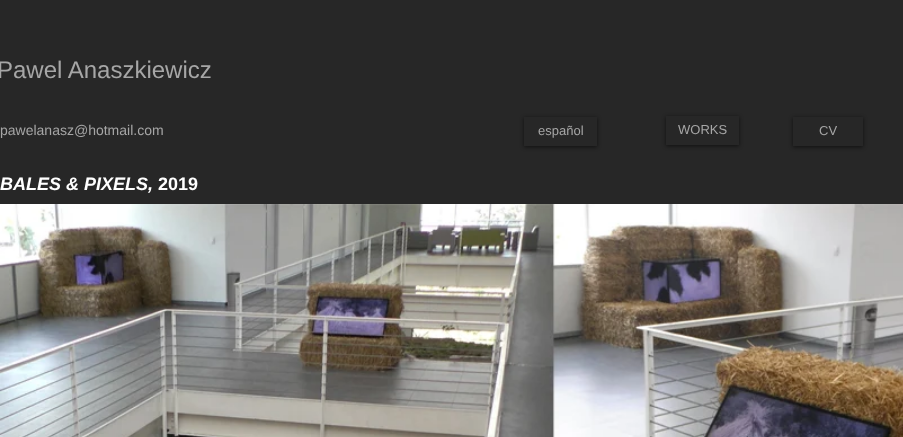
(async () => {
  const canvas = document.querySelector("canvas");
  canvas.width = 903;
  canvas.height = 437;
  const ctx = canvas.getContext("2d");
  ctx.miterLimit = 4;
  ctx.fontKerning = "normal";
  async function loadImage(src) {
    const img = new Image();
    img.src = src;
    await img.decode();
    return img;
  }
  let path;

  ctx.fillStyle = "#272727";
  ctx.fillRect(0, 0, 903, 437);
  ctx.save();
  path = new Path2D("M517 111H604V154H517ZM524 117H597V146H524Z");
  ctx.clip(path, "evenodd");
  ctx.fillStyle = "rgba(0, 0, 0, 0.6)";
  ctx.filter = "blur(2px)";
  ctx.beginPath();
  ctx.rect(524, 118, 73, 29);
  ctx.fill();
  ctx.filter = "none";
  ctx.restore();
  ctx.save();
  path = new Path2D("M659 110H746V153H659ZM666 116H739V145H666Z");
  ctx.clip(path, "evenodd");
  ctx.fillStyle = "rgba(0, 0, 0, 0.6)";
  ctx.filter = "blur(2px)";
  ctx.beginPath();
  ctx.rect(666, 117, 73, 29);
  ctx.fill();
  ctx.filter = "none";
  ctx.restore();
  ctx.save();
  path = new Path2D("M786 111H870V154H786ZM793 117H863V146H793Z");
  ctx.clip(path, "evenodd");
  ctx.fillStyle = "rgba(0, 0, 0, 0.6)";
  ctx.filter = "blur(2px)";
  ctx.beginPath();
  ctx.rect(793, 118, 70, 29);
  ctx.fill();
  ctx.filter = "none";
  ctx.restore();
  ctx.drawImage(await loadImage("img/1.png"), 0, 204, 903, 233);
  ctx.font = "24px Liberation Sans";
  ctx.fillStyle = "#a6a6a6";
  ctx.fillText("Pawel Anaszkiewicz", -3, 78);
  ctx.font = "13px Liberation Sans";
  for (const [text, x, y] of [
    ["español", 538, 135],
    ["WORKS", 678, 134],
    ["CV", 819, 135],
  ]) {
    ctx.fillText(text, x, y);
  }
  ctx.font = "italic bold 18px Liberation Sans";
  ctx.fillStyle = "#ffffff";
  ctx.fillText("BALES & PIXELS,", 0, 190);
  ctx.font = "bold 18px Liberation Sans";
  ctx.fillText("2019", 158, 190);
  ctx.font = "14px Liberation Sans";
  ctx.fillStyle = "#a6a6a6";
  ctx.fillText("pawelanasz@hotmail.com", 0, 135);
})();
